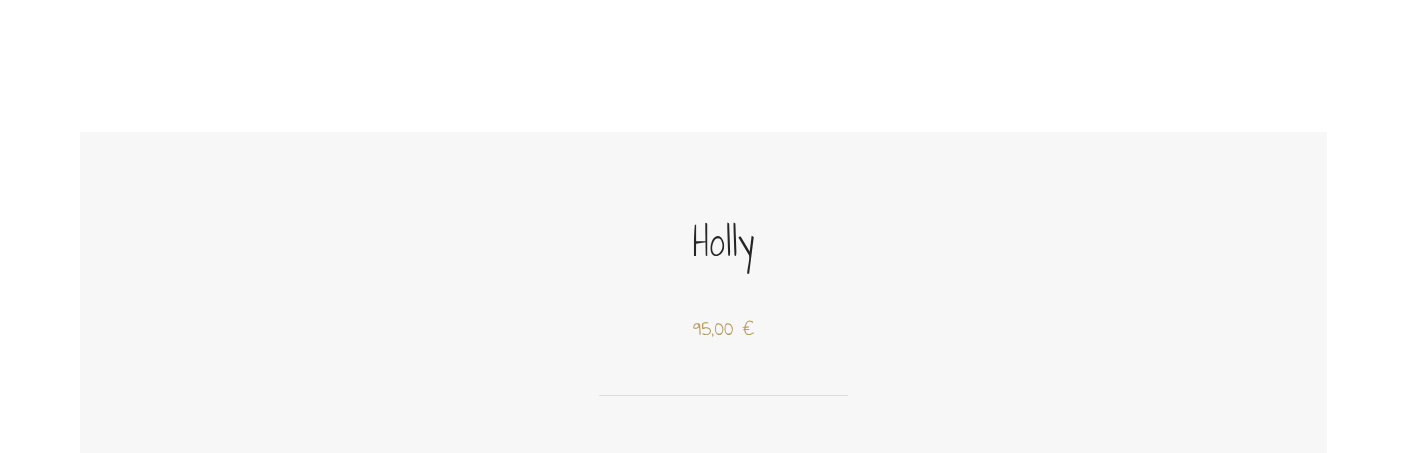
(async () => {
  const canvas = document.querySelector("canvas");
  canvas.width = 1407;
  canvas.height = 453;
  const ctx = canvas.getContext("2d");
  ctx.miterLimit = 4;
  ctx.fontKerning = "normal";

  ctx.fillStyle = "#ffffff";
  ctx.fillRect(0, 0, 1407, 453);
  ctx.fillStyle = "#f7f7f7";
  ctx.fillRect(80, 132, 1247, 321);
  ctx.fillStyle = "#dddddd";
  ctx.fillRect(599, 395, 249, 1);
  ctx.font = "44px Annie Use Your Telescope";
  ctx.fillStyle = "#262626";
  ctx.fillText("Holly", 693, 256);
  ctx.font = "24px Annie Use Your Telescope";
  ctx.fillStyle = "#b3995b";
  ctx.fillText("95,00 €", 693, 335);
})();
